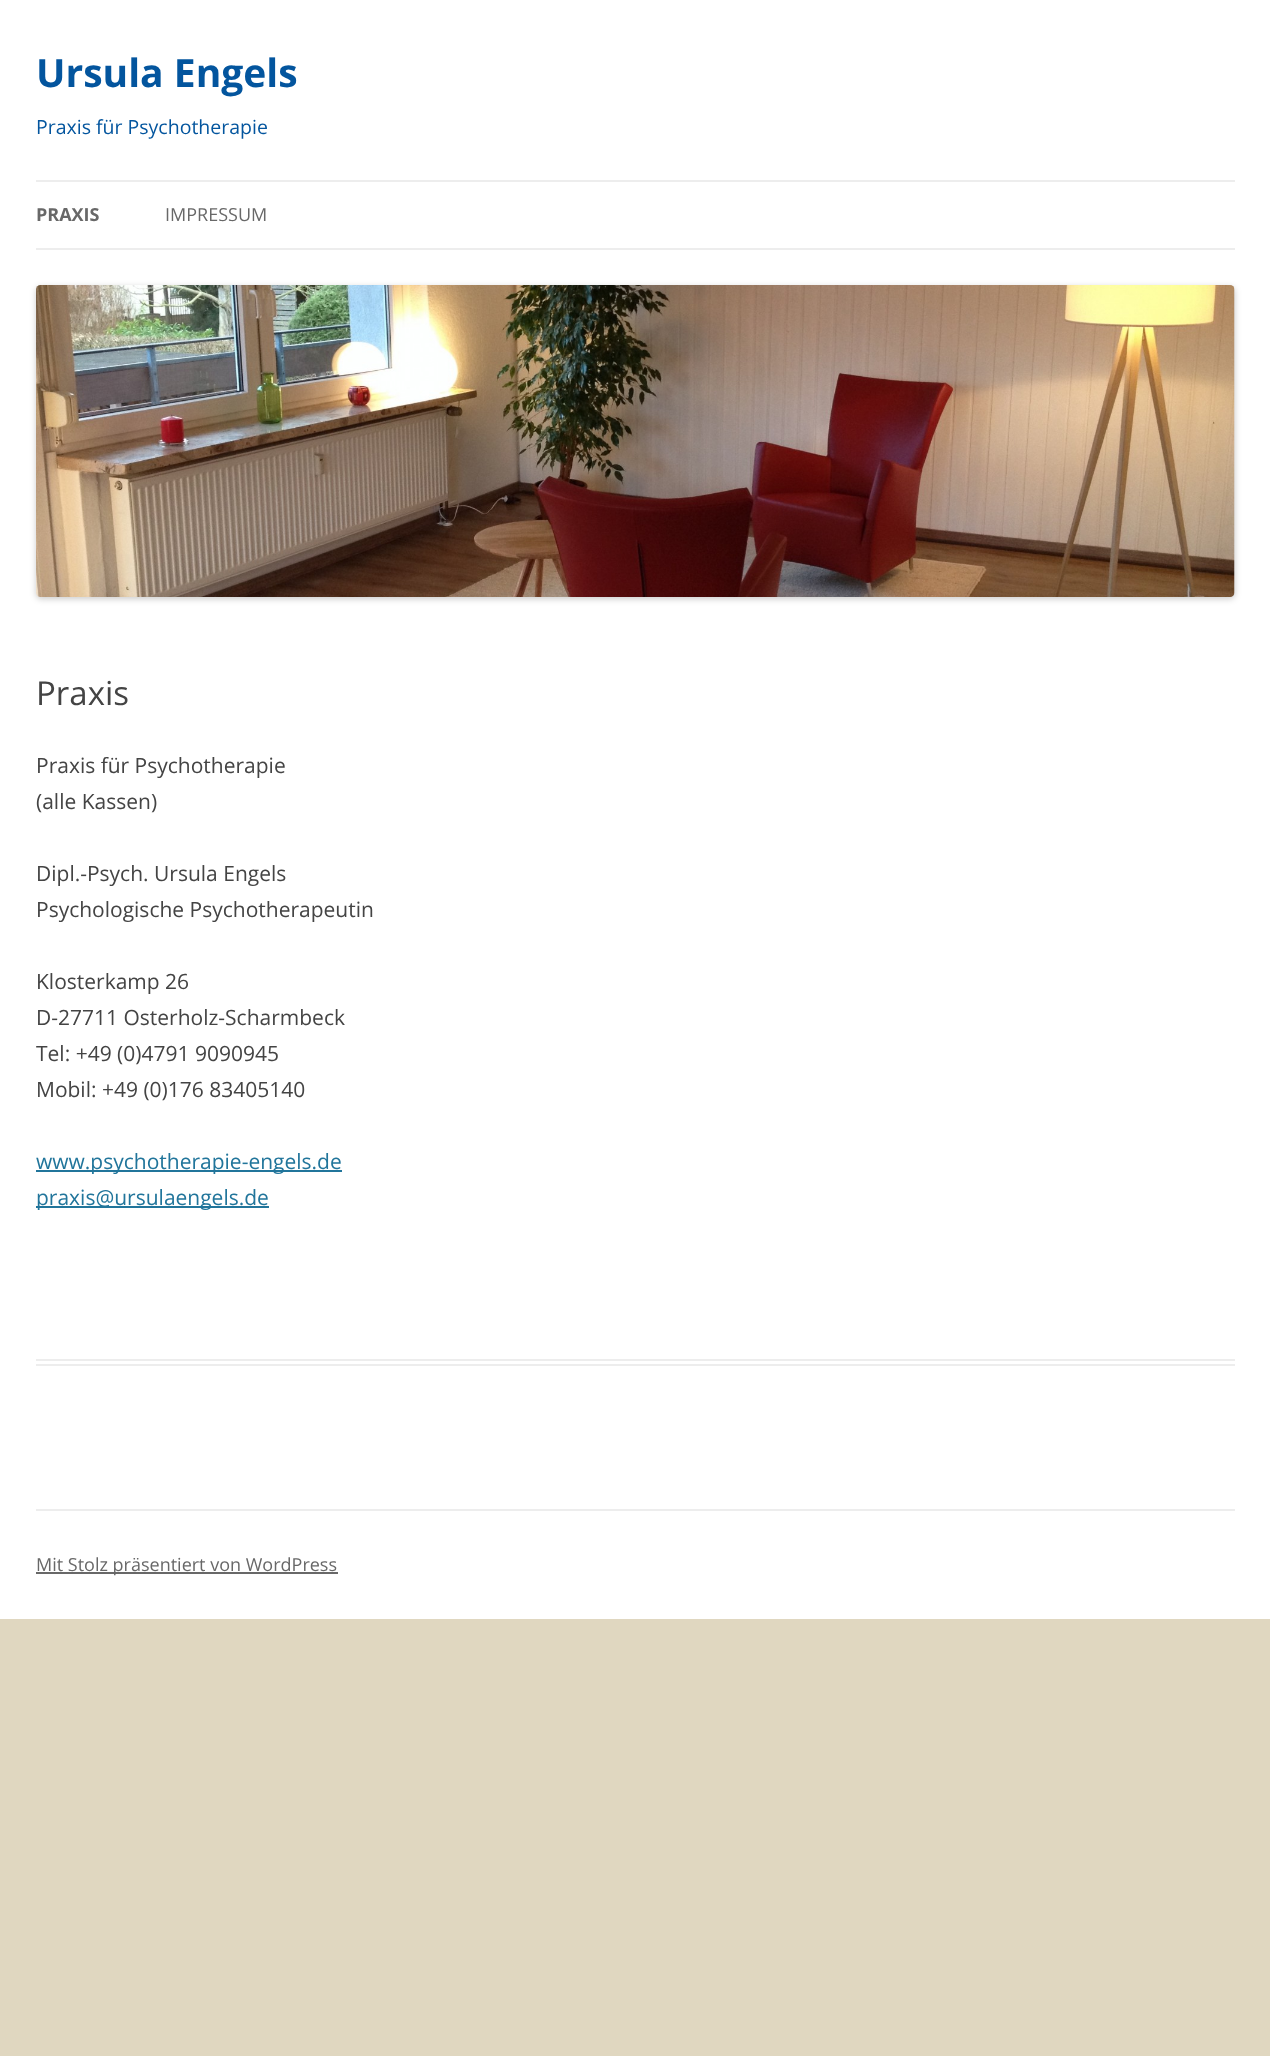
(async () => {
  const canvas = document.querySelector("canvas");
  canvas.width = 1270;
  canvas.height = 2056;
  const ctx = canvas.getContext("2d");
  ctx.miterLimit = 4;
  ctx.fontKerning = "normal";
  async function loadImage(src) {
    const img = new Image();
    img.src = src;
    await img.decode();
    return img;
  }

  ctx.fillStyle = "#e0d7c0";
  ctx.fillRect(0, 0, 1270, 2056);
  for (const [x, y, w, h, color] of [
    [0, 0, 1270, 1619, "#ffffff"],
    [36, 180, 1199, 2, "#ededed"],
    [36, 248, 1199, 2, "#ededed"],
  ]) {
    ctx.fillStyle = color;
    ctx.fillRect(x, y, w, h);
  }
  ctx.fillStyle = "rgba(0, 0, 0, 0.2)";
  ctx.filter = "blur(3px)";
  ctx.beginPath();
  ctx.roundRect(36, 287, 1199, 312, 5);
  ctx.fill();
  ctx.filter = "none";
  ctx.drawImage(await loadImage("img/1.png"), 36, 285, 1199, 312);
  for (const [x, y, w, h, color] of [
    [36, 1359, 1199, 2, "#ededed"],
    [36, 1364, 1199, 2, "#ededed"],
    [36, 1170, 306, 2, "#21759b"],
    [36, 1206, 233, 2, "#21759b"],
    [36, 1509, 1199, 2, "#ededed"],
    [36, 1572, 302, 2, "#686868"],
  ]) {
    ctx.fillStyle = color;
    ctx.fillRect(x, y, w, h);
  }
  ctx.font = "bold 39px Open Sans";
  ctx.fillStyle = "#03559e";
  ctx.fillText("Ursula Engels", 36, 87);
  ctx.font = "19.5px Open Sans";
  ctx.fillText("Praxis für Psychotherapie", 36, 134);
  ctx.font = "bold 18px Open Sans";
  ctx.fillStyle = "#686868";
  ctx.fillText("PRAXIS", 36, 221);
  ctx.font = "18px Open Sans";
  ctx.fillText("IMPRESSUM", 165, 221);
  ctx.font = "33px Open Sans";
  ctx.fillStyle = "#444444";
  ctx.fillText("Praxis", 36, 705);
  ctx.font = "21px Open Sans";
  for (const [text, x, y] of [
    ["Praxis für Psychotherapie", 36, 773],
    ["(alle Kassen)", 36, 809],
    ["Dipl.-Psych. Ursula Engels", 36, 881],
    ["Psychologische Psychotherapeutin", 36, 917],
    ["Klosterkamp 26", 36, 989],
    ["D-27711 Osterholz-Scharmbeck", 36, 1025],
    ["Tel: +49 (0)4791 9090945", 36, 1061],
    ["Mobil: +49 (0)176 83405140", 36, 1097],
  ]) {
    ctx.fillText(text, x, y);
  }
  ctx.fillStyle = "#21759b";
  ctx.fillText("www.psychotherapie-engels.de", 36, 1169);
  ctx.fillText("praxis@ursulaengels.de", 36, 1205);
  ctx.font = "18px Open Sans";
  ctx.fillStyle = "#686868";
  ctx.fillText("Mit Stolz präsentiert von WordPress", 36, 1571);
})();
